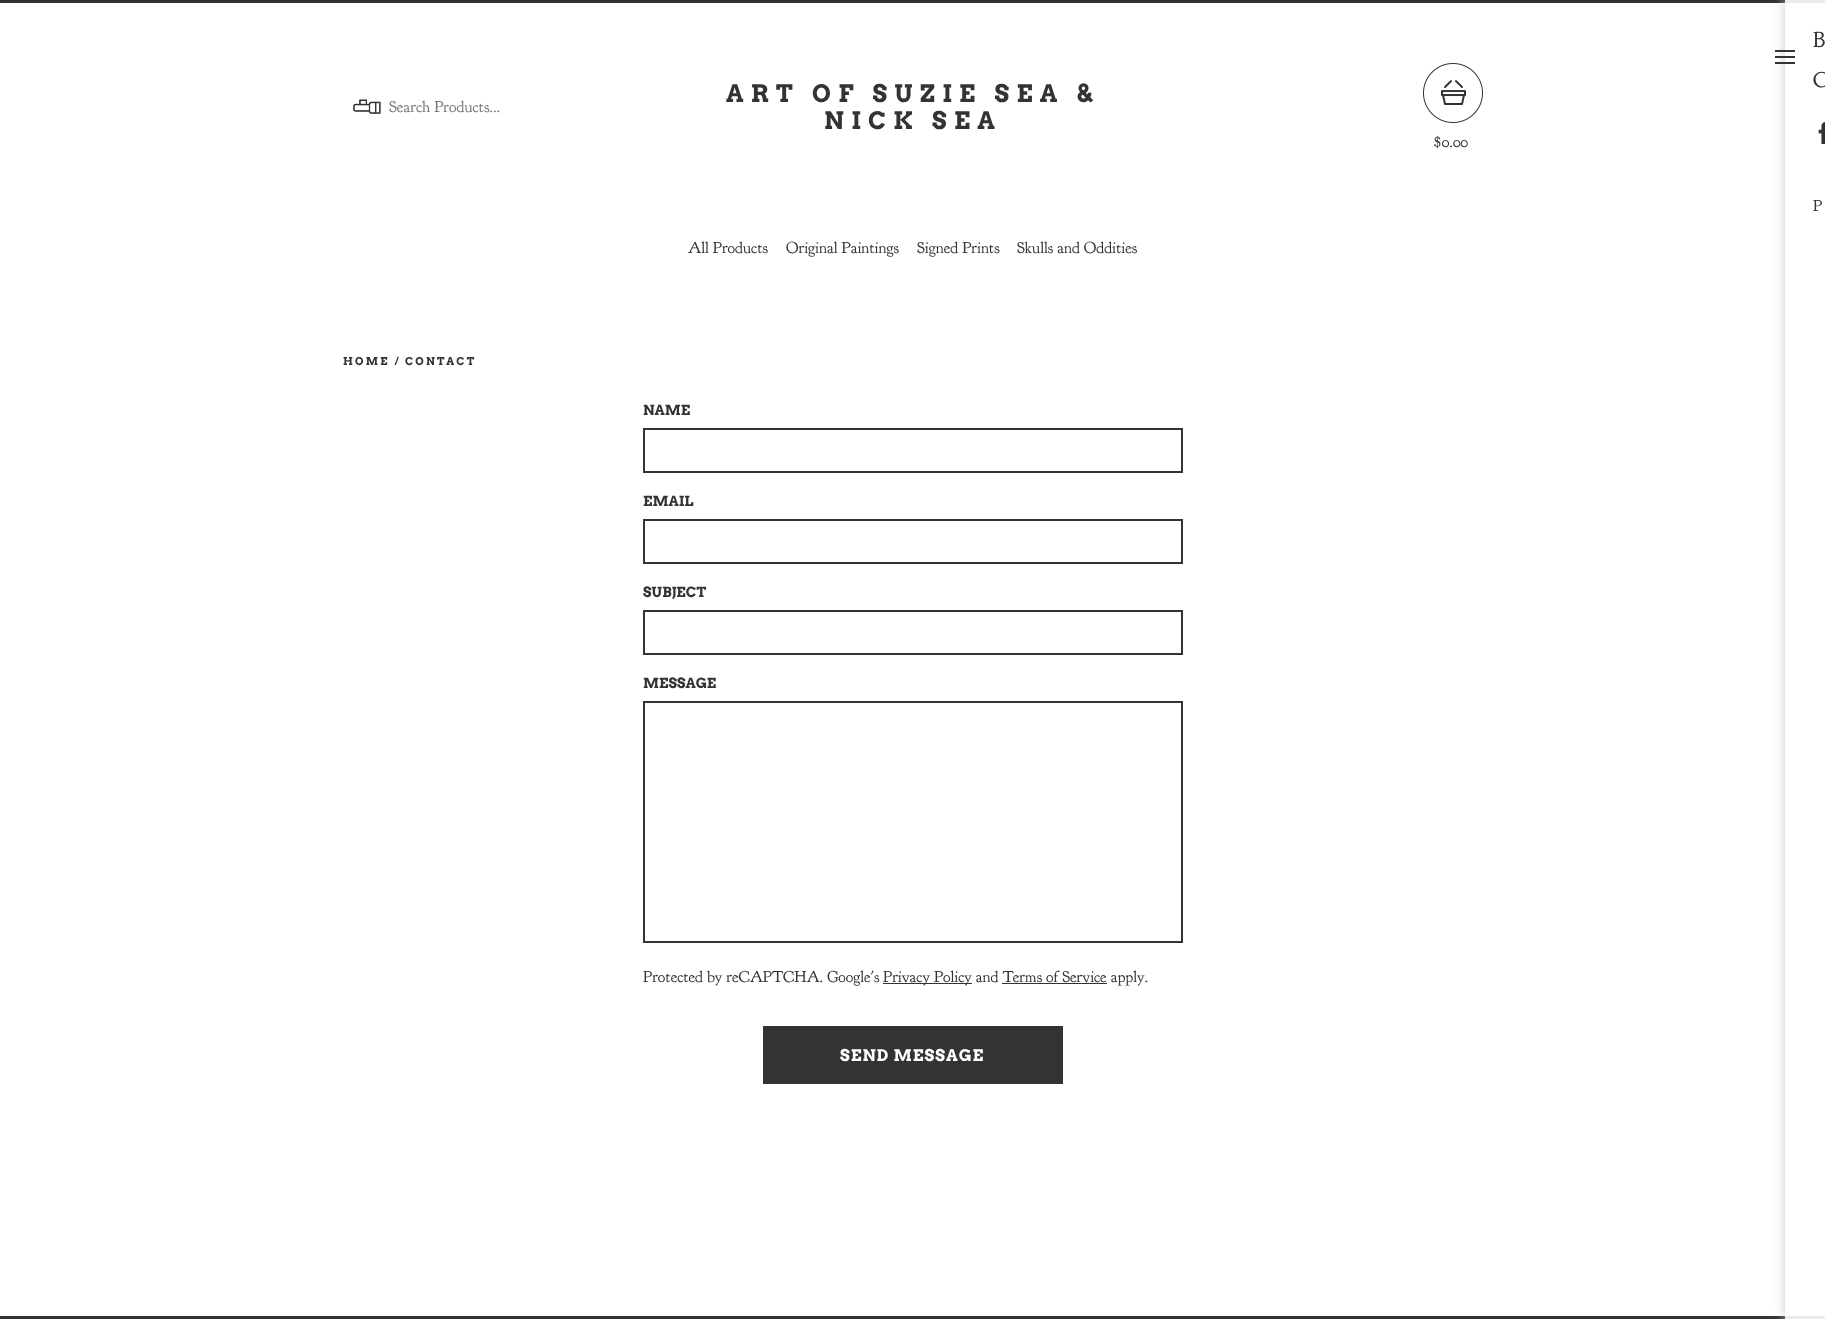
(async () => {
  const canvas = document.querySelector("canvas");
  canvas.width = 1825;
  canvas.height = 1319;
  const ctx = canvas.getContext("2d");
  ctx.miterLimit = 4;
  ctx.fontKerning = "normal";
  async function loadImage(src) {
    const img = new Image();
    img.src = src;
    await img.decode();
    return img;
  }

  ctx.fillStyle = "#ffffff";
  ctx.fillRect(0, 0, 1825, 1319);
  ctx.fillStyle = "#333333";
  ctx.fillRect(0, 0, 1785, 3);
  ctx.fillStyle = "#ebebeb";
  ctx.fillRect(1785, 0, 40, 3);
  ctx.drawImage(await loadImage("img/1.png"), 353, 99, 28, 15);
  ctx.drawImage(await loadImage("img/2.png"), 1423, 63, 60, 60);
  ctx.fillStyle = "#333333";
  ctx.fillRect(0, 1316, 1785, 3);
  ctx.fillStyle = "#ebebeb";
  ctx.fillRect(1785, 1316, 40, 3);
  ctx.save();
  ctx.beginPath();
  ctx.rect(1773, 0, 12, 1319);
  ctx.clip();
  ctx.fillStyle = "#cccccc";
  ctx.filter = "blur(6px)";
  ctx.beginPath();
  ctx.rect(1785, 0, 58, 1319);
  ctx.fill();
  ctx.filter = "none";
  ctx.restore();
  ctx.drawImage(await loadImage("img/3.png"), 1775, 50, 20, 14);
  ctx.drawImage(await loadImage("img/4.png"), 1818, 122, 7, 22);
  ctx.strokeStyle = "#333333";
  ctx.lineWidth = 2;
  ctx.strokeRect(644, 429, 538, 43);
  ctx.strokeRect(644, 520, 538, 43);
  ctx.strokeRect(644, 611, 538, 43);
  ctx.strokeRect(644, 702, 538, 240);
  for (const [x, y, w, h, color] of [
    [883, 983, 89, 1, "#333333"],
    [1002, 983, 105, 1, "#333333"],
    [763, 1026, 300, 58, "#333333"],
  ]) {
    ctx.fillStyle = color;
    ctx.fillRect(x, y, w, h);
  }
  ctx.font = "16px 'Goudy Bookletter 1911'";
  ctx.fillStyle = "#757575";
  ctx.fillText("Search Products...", 389, 112);
  ctx.letterSpacing = "7.25px";
  ctx.font = "bold 24px Arvo";
  ctx.fillStyle = "#333333";
  ctx.fillText("ART OF SUZIE SEA &", 726, 102);
  ctx.fillText("NICK SEA", 824, 129);
  ctx.letterSpacing = "0px";
  ctx.font = "16px 'Goudy Bookletter 1911'";
  ctx.fillText("$0.00", 1434, 147);
  ctx.letterSpacing = "1px";
  ctx.font = "22px 'Goudy Bookletter 1911'";
  ctx.fillText("B", 1813, 47);
  ctx.fillText("C", 1813, 87);
  ctx.font = "16px 'Goudy Bookletter 1911'";
  ctx.fillText("P", 1813, 211);
  ctx.letterSpacing = "0px";
  for (const [text, x, y] of [
    ["All Products", 688, 253],
    ["Original Paintings", 786, 253],
    ["Signed Prints", 917, 253],
    ["Skulls and Oddities", 1017, 253],
  ]) {
    ctx.fillText(text, x, y);
  }
  ctx.letterSpacing = "2.2px";
  ctx.font = "bold 10.75px Arvo";
  ctx.fillText("HOME / CONTACT", 343, 365);
  ctx.letterSpacing = "0px";
  ctx.font = "bold 14px Arvo";
  for (const [text, x, y] of [
    ["NAME", 643, 415],
    ["EMAIL", 643, 506],
    ["SUBJECT", 643, 597],
    ["MESSAGE", 643, 688],
  ]) {
    ctx.fillText(text, x, y);
  }
  ctx.font = "16px 'Goudy Bookletter 1911'";
  ctx.fillText("Protected by reCAPTCHA. Google's", 643, 982);
  ctx.fillText("Privacy Policy and Terms of Service apply.", 883, 982);
  ctx.letterSpacing = "1px";
  ctx.font = "bold 16px Arvo";
  ctx.fillStyle = "#ffffff";
  ctx.fillText("SEND MESSAGE", 840, 1061);
})();
